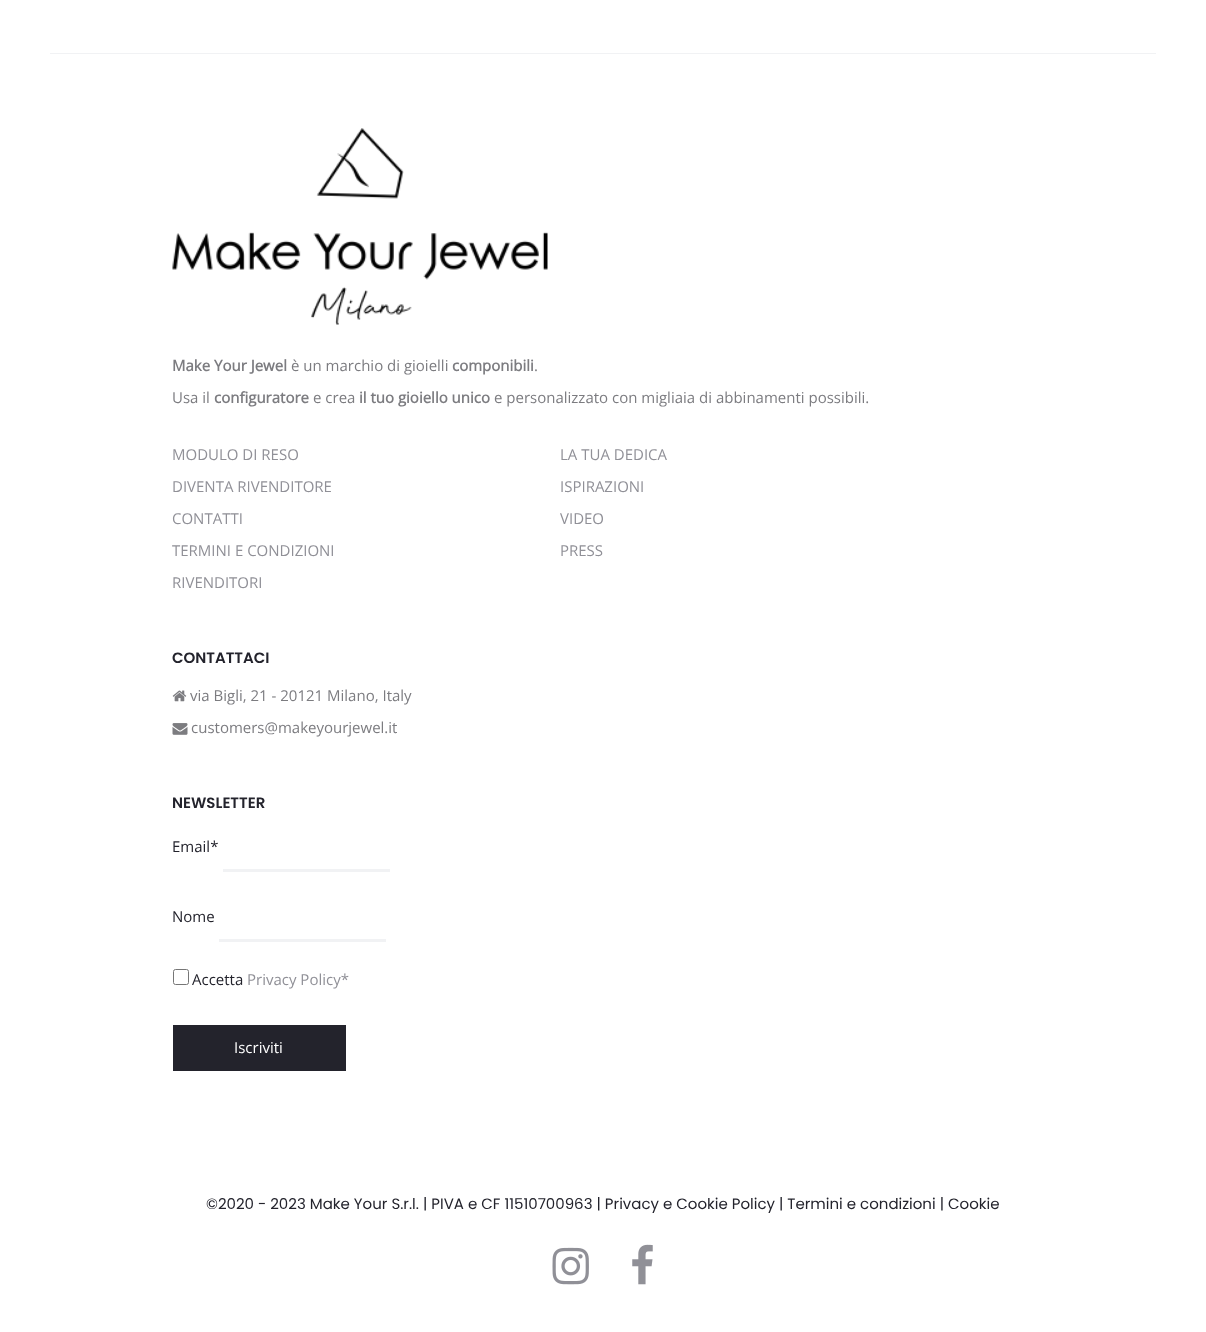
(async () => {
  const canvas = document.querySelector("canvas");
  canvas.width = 1206;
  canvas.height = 1332;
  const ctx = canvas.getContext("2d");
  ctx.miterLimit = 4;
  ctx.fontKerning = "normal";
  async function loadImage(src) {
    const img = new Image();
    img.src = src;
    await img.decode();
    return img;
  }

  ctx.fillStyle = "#ffffff";
  ctx.fillRect(0, 0, 1206, 1332);
  ctx.fillStyle = "#f1f2f4";
  ctx.fillRect(50, 53, 1106, 1);
  ctx.drawImage(await loadImage("img/1.png"), 172, 128, 376, 197);
  ctx.drawImage(await loadImage("img/2.png"), 172, 690, 15, 12);
  ctx.drawImage(await loadImage("img/3.png"), 172, 723, 16, 12);
  ctx.fillRect(223, 869, 167, 3);
  ctx.fillRect(219, 939, 167, 3);
  ctx.beginPath();
  ctx.roundRect(173.5, 969.5, 15, 15, 2);
  ctx.strokeStyle = "#767676";
  ctx.stroke();
  ctx.fillStyle = "#23232c";
  ctx.fillRect(173, 1025, 173, 46);
  ctx.drawImage(await loadImage("img/4.png"), 552, 1247, 37, 38);
  ctx.drawImage(await loadImage("img/5.png"), 632, 1244, 21, 41);
  ctx.font = "bold 15px Open Sans";
  ctx.fillStyle = "#7c7c80";
  ctx.fillText("Make Your Jewel", 172, 371);
  ctx.font = "15px Open Sans";
  ctx.fillText("è un marchio di gioielli", 291, 371);
  ctx.font = "bold 15px Open Sans";
  ctx.fillText("componibili", 452, 371);
  ctx.font = "15px Open Sans";
  ctx.fillText(".", 534, 371);
  ctx.fillText("Usa il", 172, 403);
  ctx.font = "bold 15px Open Sans";
  ctx.fillText("configuratore", 214, 403);
  ctx.font = "15px Open Sans";
  ctx.fillText("e crea", 313, 403);
  ctx.font = "bold 15px Open Sans";
  ctx.fillText("il tuo gioiello unico", 359, 403);
  ctx.font = "15px Open Sans";
  ctx.fillText("e personalizzato con migliaia di abbinamenti possibili.", 494, 403);
  ctx.fillStyle = "#909097";
  for (const [text, x, y] of [
    ["MODULO DI RESO", 172, 460],
    ["DIVENTA RIVENDITORE", 172, 492],
    ["CONTATTI", 172, 524],
    ["TERMINI E CONDIZIONI", 172, 556],
    ["RIVENDITORI", 172, 588],
    ["LA TUA DEDICA", 560, 460],
    ["ISPIRAZIONI", 560, 492],
    ["VIDEO", 560, 524],
    ["PRESS", 560, 556],
  ]) {
    ctx.fillText(text, x, y);
  }
  ctx.font = "600 15px Poppins";
  ctx.fillStyle = "#23232c";
  ctx.fillText("CONTATTACI", 172, 663);
  ctx.font = "15px Open Sans";
  ctx.fillStyle = "#7c7c80";
  ctx.fillText("via Bigli, 21 - 20121 Milano, Italy", 190, 701);
  ctx.fillText("customers@makeyourjewel.it", 191, 733);
  ctx.font = "600 15px Poppins";
  ctx.fillStyle = "#23232c";
  ctx.fillText("NEWSLETTER", 172, 808);
  ctx.font = "15px Open Sans";
  for (const [text, x, y] of [
    ["Email*", 172, 852],
    ["Nome", 172, 922],
    ["Accetta", 192, 985],
  ]) {
    ctx.fillText(text, x, y);
  }
  ctx.fillStyle = "#909097";
  ctx.fillText("Privacy Policy*", 247, 985);
  ctx.fillStyle = "#ffffff";
  ctx.fillText("Iscriviti", 234, 1053);
  ctx.font = "15px Poppins";
  ctx.fillStyle = "#23232c";
  ctx.fillText("©2020 - 2023 Make Your S.r.l. | PIVA e CF 11510700963 | Privacy e Cookie Policy | Termini e condizioni | Cookie", 206, 1209);
})();
